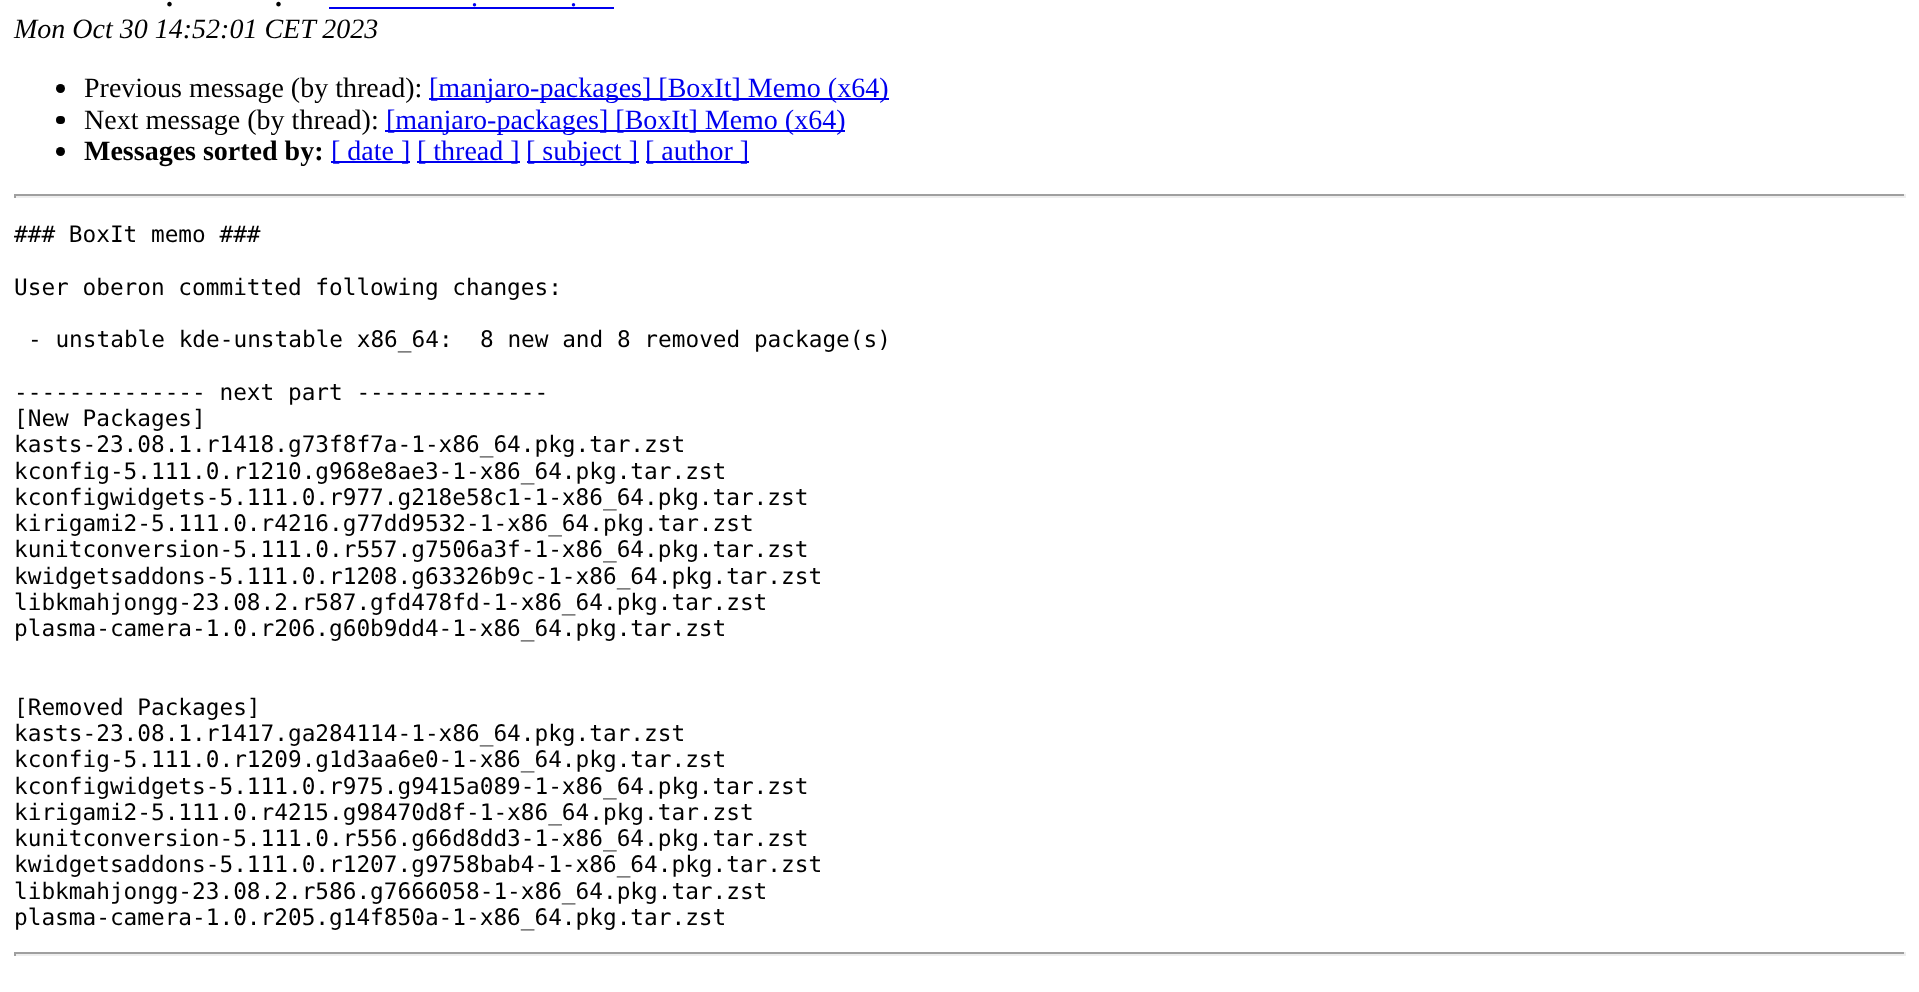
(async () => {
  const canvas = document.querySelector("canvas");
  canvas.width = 1919;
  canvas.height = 992;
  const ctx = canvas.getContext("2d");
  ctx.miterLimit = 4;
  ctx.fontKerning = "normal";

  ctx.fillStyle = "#ffffff";
  ctx.fillRect(0, 0, 1919, 992);
  ctx.fillStyle = "#0000ee";
  ctx.fillRect(329, 7, 285, 2);
  ctx.fillStyle = "#000000";
  ctx.beginPath();
  ctx.arc(60.5, 88.5, 4.5, 0, Math.PI * 2);
  ctx.fill();
  ctx.fillStyle = "#0000ee";
  ctx.fillRect(429, 98, 460, 2);
  ctx.fillStyle = "#000000";
  ctx.beginPath();
  ctx.roundRect(56, 116, 9, 8, 4);
  ctx.fill();
  ctx.fillStyle = "#0000ee";
  ctx.fillRect(385, 130, 460, 2);
  ctx.fillStyle = "#000000";
  ctx.beginPath();
  ctx.arc(60.5, 151.5, 4.5, 0, Math.PI * 2);
  ctx.fill();
  for (const [x, y, w, h, color] of [
    [331, 161, 79, 2, "#0000ee"],
    [417, 161, 103, 2, "#0000ee"],
    [527, 161, 112, 2, "#0000ee"],
    [646, 161, 103, 2, "#0000ee"],
    [14, 194, 1892, 2, "#9f9f9f"],
    [1904, 194, 2, 4, "#eeeeee"],
    [14, 196, 1892, 2, "#eeeeee"],
    [14, 194, 2, 4, "#9f9f9f"],
    [14, 952, 1892, 2, "#9f9f9f"],
    [1904, 952, 2, 4, "#eeeeee"],
    [14, 954, 1892, 2, "#eeeeee"],
    [14, 952, 2, 4, "#9f9f9f"],
  ]) {
    ctx.fillStyle = color;
    ctx.fillRect(x, y, w, h);
  }
  ctx.font = "bold 28px Liberation Serif";
  ctx.fillStyle = "#000000";
  ctx.fillText(".", 166, 6);
  ctx.fillText(".", 275, 6);
  ctx.font = "28px Liberation Serif";
  ctx.fillStyle = "#0000ee";
  ctx.fillText(".", 471, 6);
  ctx.fillText(".", 570, 6);
  ctx.font = "italic 28px Liberation Serif";
  ctx.fillStyle = "#000000";
  ctx.fillText("Mon Oct 30 14:52:01 CET 2023", 14, 38);
  ctx.font = "28px Liberation Serif";
  ctx.fillText("Previous message (by thread):", 84, 97);
  ctx.fillStyle = "#0000ee";
  ctx.fillText("[manjaro-packages] [BoxIt] Memo (x64)", 429, 97);
  ctx.fillStyle = "#000000";
  ctx.fillText("Next message (by thread):", 84, 129);
  ctx.fillStyle = "#0000ee";
  ctx.fillText("[manjaro-packages] [BoxIt] Memo (x64)", 386, 129);
  ctx.font = "bold 28px Liberation Serif";
  ctx.fillStyle = "#000000";
  ctx.fillText("Messages sorted by:", 84, 160);
  ctx.font = "28px Liberation Serif";
  ctx.fillStyle = "#0000ee";
  for (const [text, x, y] of [
    ["[ date ]", 331, 160],
    ["[ thread ]", 417, 160],
    ["[ subject ]", 526, 160],
    ["[ author ]", 645, 160],
  ]) {
    ctx.fillText(text, x, y);
  }
  ctx.font = "22.75px DejaVu Sans Mono";
  ctx.fillStyle = "#000000";
  for (const [text, x, y] of [
    ["### BoxIt memo ###", 14, 242],
    ["User oberon committed following changes:", 14, 295],
    ["- unstable kde-unstable x86_64:  8 new and 8 removed package(s)", 28, 347],
    ["-------------- next part --------------", 14, 400],
    ["[New Packages]", 14, 426],
    ["kasts-23.08.1.r1418.g73f8f7a-1-x86_64.pkg.tar.zst", 14, 452],
    ["kconfig-5.111.0.r1210.g968e8ae3-1-x86_64.pkg.tar.zst", 14, 479],
    ["kconfigwidgets-5.111.0.r977.g218e58c1-1-x86_64.pkg.tar.zst", 14, 505],
    ["kirigami2-5.111.0.r4216.g77dd9532-1-x86_64.pkg.tar.zst", 14, 531],
    ["kunitconversion-5.111.0.r557.g7506a3f-1-x86_64.pkg.tar.zst", 14, 557],
    ["kwidgetsaddons-5.111.0.r1208.g63326b9c-1-x86_64.pkg.tar.zst", 14, 584],
    ["libkmahjongg-23.08.2.r587.gfd478fd-1-x86_64.pkg.tar.zst", 14, 610],
    ["plasma-camera-1.0.r206.g60b9dd4-1-x86_64.pkg.tar.zst", 14, 636],
    ["[Removed Packages]", 14, 715],
    ["kasts-23.08.1.r1417.ga284114-1-x86_64.pkg.tar.zst", 14, 741],
    ["kconfig-5.111.0.r1209.g1d3aa6e0-1-x86_64.pkg.tar.zst", 14, 767],
    ["kconfigwidgets-5.111.0.r975.g9415a089-1-x86_64.pkg.tar.zst", 14, 794],
    ["kirigami2-5.111.0.r4215.g98470d8f-1-x86_64.pkg.tar.zst", 14, 820],
    ["kunitconversion-5.111.0.r556.g66d8dd3-1-x86_64.pkg.tar.zst", 14, 846],
    ["kwidgetsaddons-5.111.0.r1207.g9758bab4-1-x86_64.pkg.tar.zst", 14, 872],
    ["libkmahjongg-23.08.2.r586.g7666058-1-x86_64.pkg.tar.zst", 14, 899],
    ["plasma-camera-1.0.r205.g14f850a-1-x86_64.pkg.tar.zst", 14, 925],
  ]) {
    ctx.fillText(text, x, y);
  }
})();
